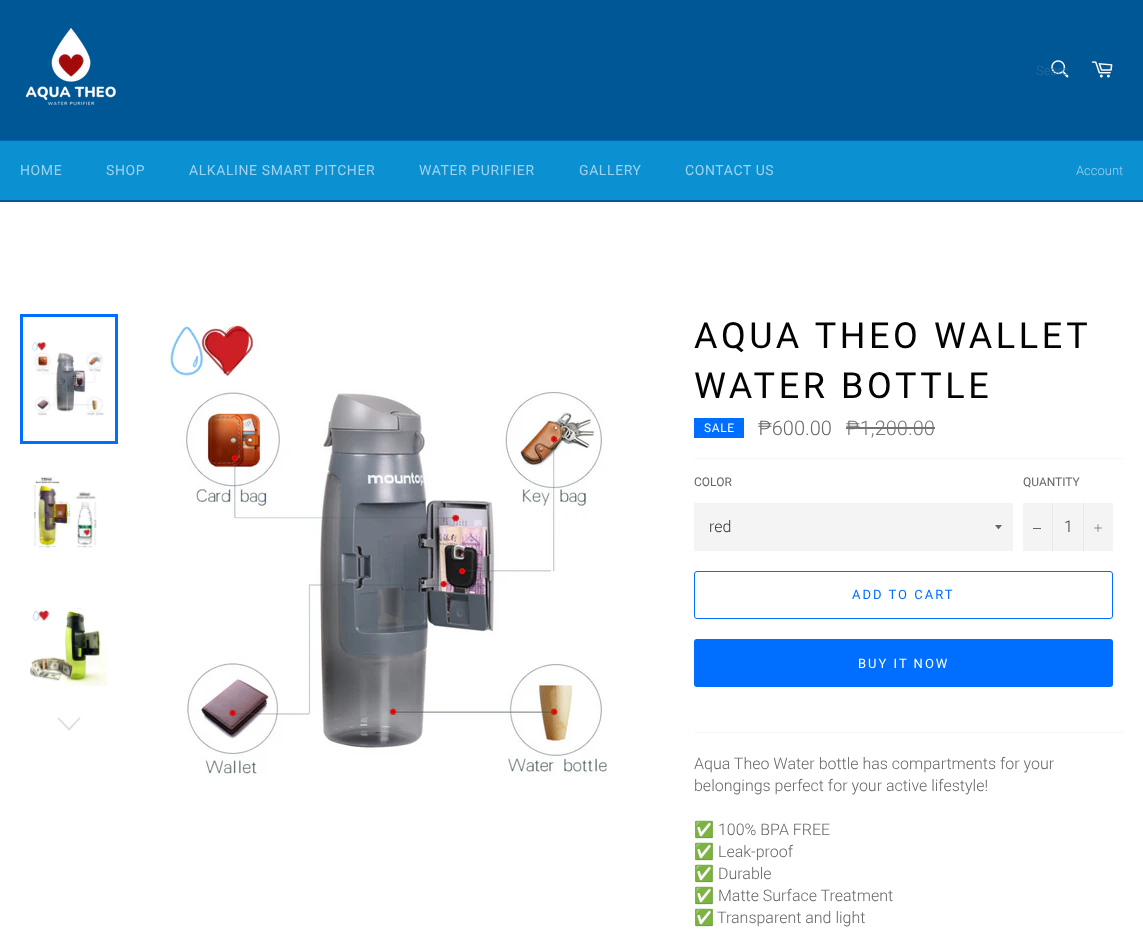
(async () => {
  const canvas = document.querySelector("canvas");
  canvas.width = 1143;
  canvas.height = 934;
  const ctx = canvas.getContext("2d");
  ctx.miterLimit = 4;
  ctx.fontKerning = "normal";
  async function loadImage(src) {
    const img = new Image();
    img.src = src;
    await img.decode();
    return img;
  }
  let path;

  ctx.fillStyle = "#005795";
  ctx.fillRect(0, 0, 1143, 934);
  ctx.drawImage(await loadImage("img/1.png"), 25, 28, 91, 78);
  ctx.drawImage(await loadImage("img/2.png"), 1051, 60, 18, 18);
  ctx.drawImage(await loadImage("img/3.png"), 1091, 61, 22, 17);
  for (const [x, y, w, h, color] of [
    [0, 140, 1143, 1, "#0066af"],
    [0, 141, 1143, 59, "#0b90d2"],
    [0, 202, 1143, 732, "#ffffff"],
  ]) {
    ctx.fillStyle = color;
    ctx.fillRect(x, y, w, h);
  }
  ctx.drawImage(await loadImage("img/4.png"), 31, 340, 73, 76);
  ctx.strokeStyle = "#006eff";
  ctx.lineWidth = 3;
  ctx.strokeRect(21.5, 315.5, 95, 127);
  ctx.drawImage(await loadImage("img/5.png"), 33, 477, 64, 71);
  ctx.drawImage(await loadImage("img/6.png"), 30, 608, 78, 78);
  ctx.fillStyle = "#e0e0e0";
  path = new Path2D("M79.5 717L80.5 718.5L69 731L57.5 718.5L58.5 717L69 728Z");
  ctx.fill(path);
  ctx.drawImage(await loadImage("img/7.png"), 168, 321, 440, 455);
  for (const [x, y, w, h, color] of [
    [694, 418, 50, 20, "#006eff"],
    [846, 427, 89, 2, "#737373"],
    [694, 458, 429, 1, "#f7f7f7"],
    [694, 503, 319, 48, "#f4f4f4"],
  ]) {
    ctx.fillStyle = color;
    ctx.fillRect(x, y, w, h);
  }
  ctx.fillStyle = "#666666";
  path = new Path2D("M995 525C999.5 530.5 997.5 530.5 1002 525Z");
  ctx.fill(path);
  for (const [x, y, w, h, color] of [
    [1023, 503, 90, 48, "#f4f4f4"],
    [1052, 503, 1, 48, "#e7e7e7"],
    [1033, 528, 8, 1, "#666666"],
    [1083, 503, 1, 48, "#e7e7e7"],
  ]) {
    ctx.fillStyle = color;
    ctx.fillRect(x, y, w, h);
  }
  ctx.drawImage(await loadImage("img/8.png"), 1094, 524, 8, 8);
  ctx.beginPath();
  ctx.roundRect(694.5, 571.5, 418, 47, 2.5);
  ctx.lineWidth = 1;
  ctx.stroke();
  ctx.fillStyle = "#006eff";
  ctx.beginPath();
  ctx.roundRect(694, 639, 419, 48, 3);
  ctx.fill();
  ctx.fillStyle = "#f7f7f7";
  ctx.fillRect(694, 732, 429, 1);
  ctx.font = "300 13px Roboto";
  ctx.fillStyle = "#2770a5";
  ctx.fillText("Searc", 1036, 75);
  ctx.letterSpacing = "0.6px";
  ctx.font = "14px Roboto";
  ctx.fillStyle = "#9dd3ed";
  for (const [text, x, y] of [
    ["HOME", 20, 175],
    ["SHOP", 106, 175],
    ["ALKALINE SMART PITCHER", 189, 175],
    ["WATER PURIFIER", 419, 175],
    ["GALLERY", 579, 175],
    ["CONTACT US", 685, 175],
  ]) {
    ctx.fillText(text, x, y);
  }
  ctx.letterSpacing = "0px";
  ctx.font = "300 13px Roboto";
  ctx.fillText("Account", 1076, 175);
  ctx.letterSpacing = "3.6px";
  ctx.font = "36px Roboto";
  ctx.fillStyle = "#030303";
  ctx.fillText("AQUA THEO WALLET", 694, 348);
  ctx.fillText("WATER BOTTLE", 694, 398);
  ctx.letterSpacing = "0.6px";
  ctx.font = "12px Roboto";
  ctx.fillStyle = "#ffffff";
  ctx.fillText("SALE", 704, 432);
  ctx.letterSpacing = "0px";
  ctx.font = "300 20px Roboto";
  ctx.fillStyle = "#666666";
  ctx.fillText("₱600.00", 758, 435);
  ctx.fillStyle = "#737373";
  ctx.fillText("₱1,200.00", 846, 435);
  ctx.font = "12px Roboto";
  ctx.fillStyle = "#666666";
  ctx.fillText("COLOR", 694, 486);
  ctx.font = "300 16px Roboto";
  ctx.fillStyle = "#333333";
  ctx.fillText("red", 709, 532);
  ctx.font = "12px Roboto";
  ctx.fillStyle = "#666666";
  ctx.fillText("QUANTITY", 1023, 486);
  ctx.font = "300 16px Roboto";
  ctx.fillStyle = "#333333";
  ctx.fillText("1", 1064, 532);
  ctx.letterSpacing = "2px";
  ctx.font = "13px Roboto";
  ctx.fillStyle = "#006eff";
  ctx.fillText("ADD TO CART", 852, 599);
  ctx.fillStyle = "#ffffff";
  ctx.fillText("BUY IT NOW", 858, 668);
  ctx.letterSpacing = "0px";
  ctx.font = "300 16px Roboto";
  ctx.fillStyle = "#666666";
  ctx.fillText("Aqua Theo Water bottle has compartments for your", 694, 769);
  ctx.fillText("belongings perfect for your active lifestyle!", 694, 791);
  ctx.font = "16px Noto Color Emoji";
  ctx.fillText("✅", 694, 835);
  ctx.font = "300 16px Roboto";
  ctx.fillText("100% BPA FREE", 718, 835);
  ctx.font = "16px Noto Color Emoji";
  ctx.fillText("✅", 694, 857);
  ctx.font = "300 16px Roboto";
  ctx.fillText("Leak-proof", 718, 857);
  ctx.font = "16px Noto Color Emoji";
  ctx.fillText("✅", 694, 879);
  ctx.font = "300 16px Roboto";
  ctx.fillText("Durable", 718, 879);
  ctx.font = "16px Noto Color Emoji";
  ctx.fillText("✅", 694, 901);
  ctx.font = "300 16px Roboto";
  ctx.fillText("Matte Surface Treatment", 718, 901);
  ctx.font = "16px Noto Color Emoji";
  ctx.fillText("✅", 694, 923);
  ctx.font = "300 16px Roboto";
  ctx.fillText("Transparent and light", 717, 923);
})();
